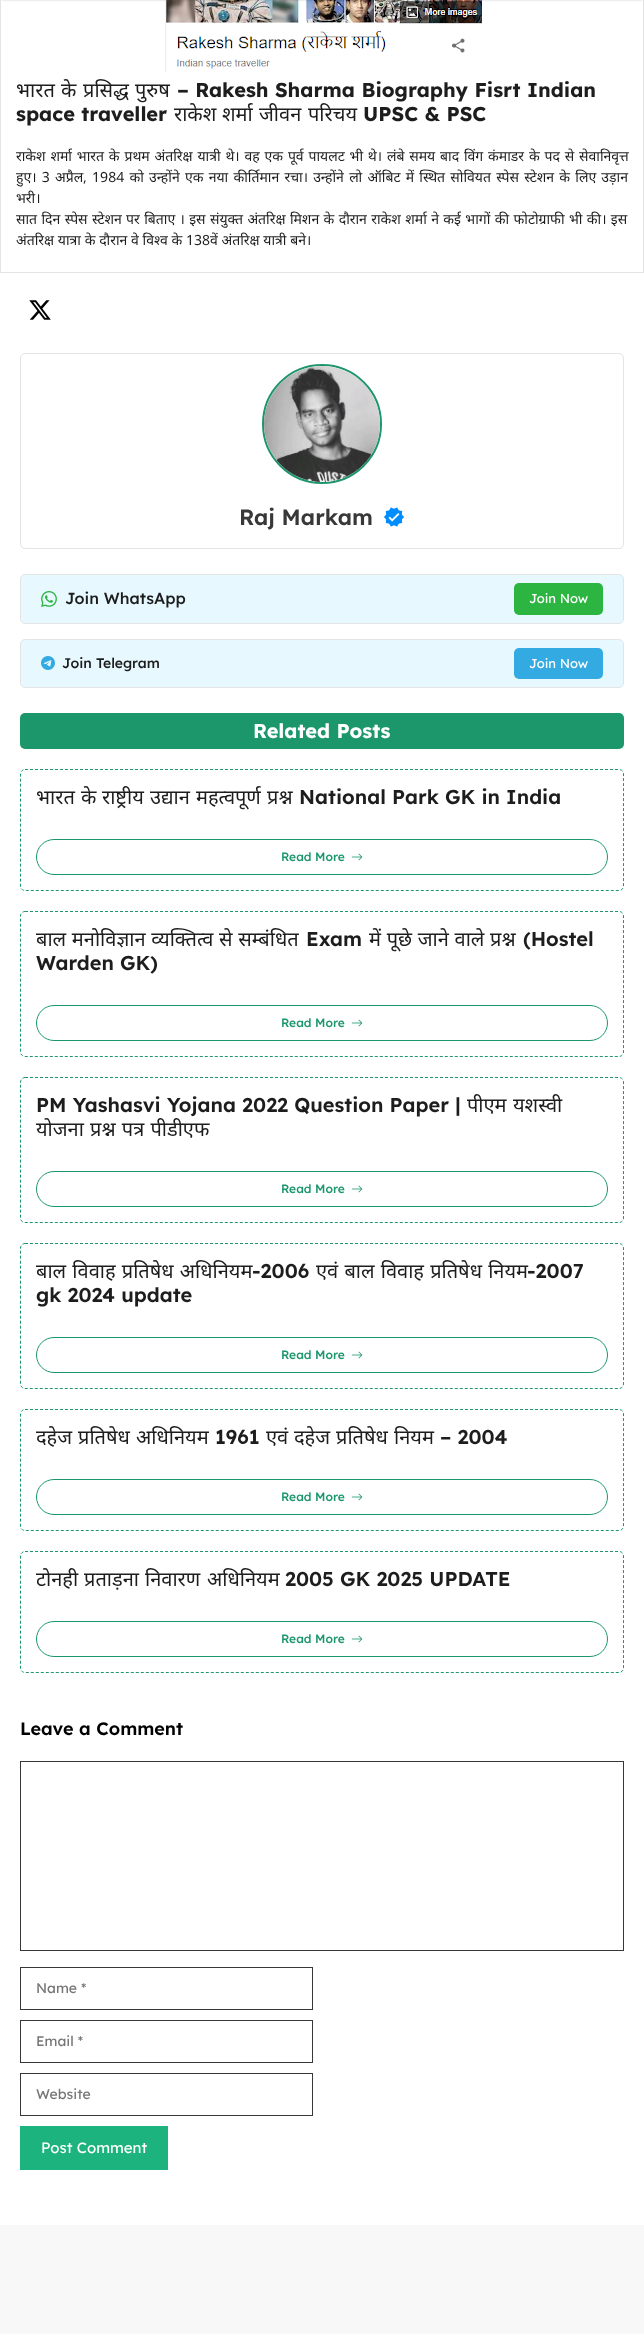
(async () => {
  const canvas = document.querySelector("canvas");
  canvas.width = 644;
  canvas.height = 2334;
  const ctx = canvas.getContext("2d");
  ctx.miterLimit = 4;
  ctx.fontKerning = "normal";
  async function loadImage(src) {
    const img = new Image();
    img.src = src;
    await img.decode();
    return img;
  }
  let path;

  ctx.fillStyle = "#ffffff";
  ctx.fillRect(0, 0, 644, 2334);
  ctx.strokeStyle = "#e4e4e4";
  ctx.strokeRect(0.5, -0.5, 643, 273);
  ctx.drawImage(await loadImage("img/1.png"), 165, 0, 317, 72);
  ctx.fillStyle = "rgba(0, 0, 0, 0.2)";
  ctx.filter = "blur(1px)";
  ctx.beginPath();
  ctx.rect(2, -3, 640, 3);
  ctx.fill();
  ctx.filter = "none";
  ctx.drawImage(await loadImage("img/2.png"), 29, 300, 22, 20);
  ctx.beginPath();
  ctx.roundRect(20.5, 353.5, 603, 195, 4.5);
  ctx.stroke();
  ctx.beginPath();
  ctx.arc(322, 424, 59, 0, Math.PI * 2);
  ctx.strokeStyle = "#1c976c";
  ctx.lineWidth = 2;
  ctx.stroke();
  ctx.drawImage(await loadImage("img/3.png"), 264, 366, 116, 116);
  ctx.drawImage(await loadImage("img/4.png"), 384, 507, 20, 20);
  ctx.fillStyle = "#e7f9ff";
  ctx.beginPath();
  ctx.roundRect(20.5, 574.5, 603, 49, 4.5);
  ctx.fill();
  ctx.strokeStyle = "#e4e4e4";
  ctx.lineWidth = 1;
  ctx.stroke();
  ctx.drawImage(await loadImage("img/5.png"), 41, 591, 16, 16);
  ctx.fillStyle = "#2cb641";
  ctx.beginPath();
  ctx.roundRect(514, 583, 89, 32, 5);
  ctx.fill();
  ctx.fillStyle = "#e7f9ff";
  ctx.beginPath();
  ctx.roundRect(20.5, 639.5, 603, 48, 4.5);
  ctx.fill();
  ctx.stroke();
  ctx.drawImage(await loadImage("img/6.png"), 41, 656, 14, 14);
  ctx.fillStyle = "#34aae2";
  ctx.beginPath();
  ctx.roundRect(514, 648, 89, 31, 5);
  ctx.fill();
  ctx.fillStyle = "#1c976c";
  ctx.beginPath();
  ctx.roundRect(20, 713, 604, 36, 5);
  ctx.fill();
  path = new Path2D("M25 769.5H619C621.5 769.5 623.5 771.5 623.5 774V886C623.5 888.5 621.5 890.5 619 890.5H25C22.5 890.5 20.5 888.5 20.5 886V774C20.5 771.5 22.5 769.5 25 769.5Z");
  ctx.strokeStyle = "#1c976c";
  ctx.setLineDash([3, 2]);
  ctx.stroke(path);
  ctx.beginPath();
  ctx.roundRect(36.5, 839.5, 571, 35, 17.5);
  ctx.setLineDash([]);
  ctx.stroke();
  ctx.drawImage(await loadImage("img/7.png"), 351, 853, 12, 8);
  path = new Path2D("M25 911.5H619C621.5 911.5 623.5 913.5 623.5 916V1052C623.5 1054.5 621.5 1056.5 619 1056.5H25C22.5 1056.5 20.5 1054.5 20.5 1052V916C20.5 913.5 22.5 911.5 25 911.5Z");
  ctx.setLineDash([3, 2]);
  ctx.stroke(path);
  ctx.beginPath();
  ctx.roundRect(36.5, 1005.5, 571, 35, 17.5);
  ctx.setLineDash([]);
  ctx.stroke();
  ctx.drawImage(await loadImage("img/7.png"), 351, 1019, 12, 8);
  path = new Path2D("M25 1077.5H619C621.5 1077.5 623.5 1079.5 623.5 1082V1218C623.5 1220.5 621.5 1222.5 619 1222.5H25C22.5 1222.5 20.5 1220.5 20.5 1218V1082C20.5 1079.5 22.5 1077.5 25 1077.5Z");
  ctx.setLineDash([3, 2]);
  ctx.stroke(path);
  ctx.beginPath();
  ctx.roundRect(36.5, 1171.5, 571, 35, 17.5);
  ctx.setLineDash([]);
  ctx.stroke();
  ctx.drawImage(await loadImage("img/7.png"), 351, 1185, 12, 8);
  path = new Path2D("M25 1243.5H619C621.5 1243.5 623.5 1245.5 623.5 1248V1384C623.5 1386.5 621.5 1388.5 619 1388.5H25C22.5 1388.5 20.5 1386.5 20.5 1384V1248C20.5 1245.5 22.5 1243.5 25 1243.5Z");
  ctx.setLineDash([3, 2]);
  ctx.stroke(path);
  ctx.beginPath();
  ctx.roundRect(36.5, 1337.5, 571, 35, 17.5);
  ctx.setLineDash([]);
  ctx.stroke();
  ctx.drawImage(await loadImage("img/7.png"), 351, 1351, 12, 8);
  path = new Path2D("M25 1409.5H619C621.5 1409.5 623.5 1411.5 623.5 1414V1526C623.5 1528.5 621.5 1530.5 619 1530.5H25C22.5 1530.5 20.5 1528.5 20.5 1526V1414C20.5 1411.5 22.5 1409.5 25 1409.5Z");
  ctx.setLineDash([3, 2]);
  ctx.stroke(path);
  ctx.beginPath();
  ctx.roundRect(36.5, 1479.5, 571, 35, 17.5);
  ctx.setLineDash([]);
  ctx.stroke();
  ctx.drawImage(await loadImage("img/7.png"), 351, 1493, 12, 8);
  path = new Path2D("M25 1551.5H619C621.5 1551.5 623.5 1553.5 623.5 1556V1668C623.5 1670.5 621.5 1672.5 619 1672.5H25C22.5 1672.5 20.5 1670.5 20.5 1668V1556C20.5 1553.5 22.5 1551.5 25 1551.5Z");
  ctx.setLineDash([3, 2]);
  ctx.stroke(path);
  ctx.beginPath();
  ctx.roundRect(36.5, 1621.5, 571, 35, 17.5);
  ctx.setLineDash([]);
  ctx.stroke();
  ctx.drawImage(await loadImage("img/7.png"), 351, 1635, 12, 8);
  ctx.strokeStyle = "#383838";
  ctx.strokeRect(20.5, 1761.5, 603, 189);
  ctx.strokeRect(20.5, 1967.5, 292, 42);
  ctx.strokeRect(20.5, 2020.5, 292, 42);
  ctx.strokeRect(20.5, 2073.5, 292, 42);
  ctx.fillStyle = "#1db37e";
  ctx.fillRect(20, 2126, 148, 44);
  ctx.fillStyle = "#f8f8f8";
  ctx.fillRect(0, 2225, 644, 109);
  ctx.font = "20px Noto Sans";
  ctx.fillStyle = "#1d1d1d";
  for (const [text, x, y] of [
    ["भारत", 16, 97],
    ["के", 61, 97],
    ["प्रसिद्ध", 83, 97],
    ["पुरुष", 135, 97],
  ]) {
    ctx.fillText(text, x, y);
  }
  ctx.font = "bold 20px Lexend Deca";
  ctx.fillText("– Rakesh Sharma Biography Fisrt Indian", 177, 97);
  ctx.fillText("space traveller", 16, 121);
  ctx.font = "20px Noto Sans";
  for (const [text, x, y] of [
    ["राकेश", 174, 121],
    ["शर्मा", 222, 121],
    ["जीवन", 259, 121],
    ["परिचय", 308, 121],
  ]) {
    ctx.fillText(text, x, y);
  }
  ctx.font = "bold 20px Lexend Deca";
  ctx.fillText("UPSC & PSC", 363, 121);
  ctx.wordSpacing = "1.2px";
  ctx.font = "14px Noto Sans";
  ctx.fillText("राकेश शर्मा भारत के प्रथम अंतरिक्ष यात्री थे। वह एक पूर्व पायलट भी थे। लंबे समय बाद विंग कंमाडर के पद से सेवानिवृत्त", 16, 161);
  ctx.wordSpacing = "1.6px";
  ctx.fillText("हुए। 3 अप्रैल, 1984 को उन्होंने एक नया कीर्तिमान रचा। उन्होंने लो ऑबिट में स्थित सोवियत स्पेस स्टेशन के लिए उड़ान", 16, 182);
  ctx.wordSpacing = "0px";
  ctx.fillText("भरी।", 16, 203);
  ctx.wordSpacing = "0.75px";
  ctx.fillText("सात दिन स्पेस स्टेशन पर बिताए । इस संयुक्त अंतरिक्ष मिशन के दौरान राकेश शर्मा ने कई भागों की फोटोग्राफी भी की। इस", 16, 224);
  ctx.wordSpacing = "0.1px";
  ctx.fillText("अंतरिक्ष यात्रा के दौरान वे विश्व के 138वें अंतरिक्ष यात्री बने।", 16, 245);
  ctx.wordSpacing = "0px";
  ctx.font = "600 22px Lexend Deca";
  ctx.fillStyle = "#383838";
  ctx.fillText("Raj Markam", 239, 525);
  ctx.font = "500 16px Lexend Deca";
  ctx.fillStyle = "#1d1d1d";
  ctx.fillText("Join WhatsApp", 65, 604);
  ctx.font = "13px Lexend Deca";
  ctx.fillStyle = "#ffffff";
  ctx.fillText("Join Now", 529, 603);
  ctx.font = "500 14px Lexend Deca";
  ctx.fillStyle = "#1d1d1d";
  ctx.fillText("Join Telegram", 62, 668);
  ctx.font = "13px Lexend Deca";
  ctx.fillStyle = "#ffffff";
  ctx.fillText("Join Now", 529, 668);
  ctx.font = "bold 20px Lexend Deca";
  ctx.fillText("Related Posts", 253, 738);
  ctx.font = "20px Noto Sans";
  ctx.fillStyle = "#1d1d1d";
  for (const [text, x, y] of [
    ["भारत", 36, 804],
    ["के", 81, 804],
    ["राष्ट्रीय", 102, 804],
    ["उद्यान", 150, 804],
    ["महत्वपूर्ण", 196, 804],
    ["प्रश्न", 267, 804],
  ]) {
    ctx.fillText(text, x, y);
  }
  ctx.font = "600 20px Lexend Deca";
  ctx.fillText("National Park GK in India", 299, 804);
  ctx.font = "500 12px Lexend Deca";
  ctx.fillStyle = "#1c976c";
  ctx.fillText("Read More", 281, 861);
  ctx.wordSpacing = "0.5px";
  ctx.font = "20px Noto Sans";
  ctx.fillStyle = "#1d1d1d";
  ctx.fillText("बाल मनोविज्ञान व्यक्तित्व से सम्बंधित", 36, 946);
  ctx.wordSpacing = "0px";
  ctx.font = "600 20px Lexend Deca";
  ctx.fillText("Exam", 306, 946);
  ctx.wordSpacing = "0.5px";
  ctx.font = "20px Noto Sans";
  ctx.fillText("में पूछे जाने वाले प्रश्न", 369, 946);
  ctx.wordSpacing = "0px";
  ctx.font = "600 20px Lexend Deca";
  ctx.fillText("(Hostel", 523, 946);
  ctx.fillText("Warden GK)", 36, 970);
  ctx.font = "500 12px Lexend Deca";
  ctx.fillStyle = "#1c976c";
  ctx.fillText("Read More", 281, 1027);
  ctx.font = "600 20px Lexend Deca";
  ctx.fillStyle = "#1d1d1d";
  ctx.fillText("PM Yashasvi Yojana 2022 Question Paper |", 36, 1112);
  ctx.font = "20px Noto Sans";
  ctx.fillText("पीएम", 467, 1112);
  ctx.fillText("यशस्वी", 513, 1112);
  ctx.wordSpacing = "1px";
  ctx.fillText("योजना प्रश्न पत्र पीडीएफ", 36, 1136);
  ctx.wordSpacing = "0px";
  ctx.font = "500 12px Lexend Deca";
  ctx.fillStyle = "#1c976c";
  ctx.fillText("Read More", 281, 1193);
  ctx.wordSpacing = "1px";
  ctx.font = "20px Noto Sans";
  ctx.fillStyle = "#1d1d1d";
  ctx.fillText("बाल विवाह प्रतिषेध अधिनियम", 36, 1278);
  ctx.wordSpacing = "0px";
  ctx.font = "600 20px Lexend Deca";
  ctx.fillText("-2006", 252, 1278);
  ctx.wordSpacing = "1px";
  ctx.font = "20px Noto Sans";
  ctx.fillText("एवं बाल विवाह प्रतिषेध नियम", 316, 1278);
  ctx.wordSpacing = "0px";
  ctx.font = "600 20px Lexend Deca";
  ctx.fillText("-2007", 527, 1278);
  ctx.fillText("gk 2024 update", 36, 1302);
  ctx.font = "500 12px Lexend Deca";
  ctx.fillStyle = "#1c976c";
  ctx.fillText("Read More", 281, 1359);
  ctx.font = "20px Noto Sans";
  ctx.fillStyle = "#1d1d1d";
  for (const [text, x, y] of [
    ["दहेज", 36, 1444],
    ["प्रतिषेध", 78, 1444],
    ["अधिनियम", 136, 1444],
  ]) {
    ctx.fillText(text, x, y);
  }
  ctx.font = "600 20px Lexend Deca";
  ctx.fillText("1961", 215, 1444);
  ctx.font = "20px Noto Sans";
  for (const [text, x, y] of [
    ["एवं", 266, 1444],
    ["दहेज", 294, 1444],
    ["प्रतिषेध", 336, 1444],
    ["नियम", 394, 1444],
  ]) {
    ctx.fillText(text, x, y);
  }
  ctx.font = "600 20px Lexend Deca";
  ctx.fillText("– 2004", 440, 1444);
  ctx.font = "500 12px Lexend Deca";
  ctx.fillStyle = "#1c976c";
  ctx.fillText("Read More", 281, 1501);
  ctx.font = "20px Noto Sans";
  ctx.fillStyle = "#1d1d1d";
  for (const [text, x, y] of [
    ["टोनही", 36, 1586],
    ["प्रताड़ना", 84, 1586],
    ["निवारण", 145, 1586],
    ["अधिनियम", 207, 1586],
  ]) {
    ctx.fillText(text, x, y);
  }
  ctx.font = "600 20px Lexend Deca";
  ctx.fillText("2005 GK 2025 UPDATE", 285, 1586);
  ctx.font = "500 12px Lexend Deca";
  ctx.fillStyle = "#1c976c";
  ctx.fillText("Read More", 281, 1643);
  ctx.font = "600 18px Lexend Deca";
  ctx.fillStyle = "#000000";
  ctx.fillText("Leave a Comment", 20, 1735);
  ctx.font = "14px Lexend Deca";
  ctx.fillStyle = "#757575";
  for (const [text, x, y] of [
    ["Name *", 36, 1993],
    ["Email *", 36, 2046],
    ["Website", 36, 2099],
  ]) {
    ctx.fillText(text, x, y);
  }
  ctx.font = "15px Lexend Deca";
  ctx.fillStyle = "#ffffff";
  ctx.fillText("Post Comment", 41, 2153);
})();
